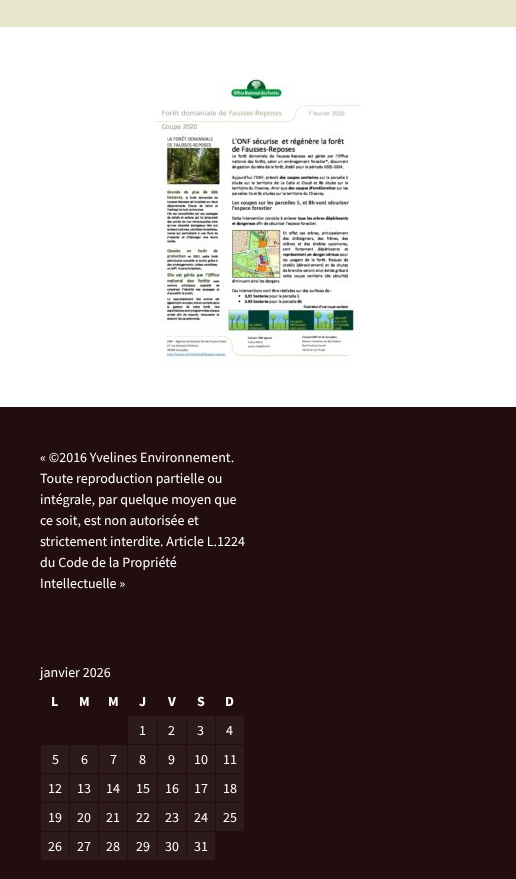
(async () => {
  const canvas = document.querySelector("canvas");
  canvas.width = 516;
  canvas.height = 879;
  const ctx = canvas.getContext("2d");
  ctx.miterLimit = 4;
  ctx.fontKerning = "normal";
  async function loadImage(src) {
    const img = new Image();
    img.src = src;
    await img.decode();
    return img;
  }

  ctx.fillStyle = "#220e10";
  ctx.fillRect(0, 0, 516, 879);
  ctx.fillStyle = "#e8e5ce";
  ctx.fillRect(0, 0, 516, 27);
  ctx.fillStyle = "#ffffff";
  ctx.fillRect(0, 27, 516, 380);
  ctx.drawImage(await loadImage("img/1.png"), 152, 75, 209, 288);
  for (const [x, y, w, h, color] of [
    [128, 716, 29, 28, "#2d1a1c"],
    [158, 716, 28, 28, "#2d1a1c"],
    [187, 716, 28, 28, "#2d1a1c"],
    [216, 716, 28, 28, "#2d1a1c"],
    [41, 745, 28, 28, "#2d1a1c"],
    [70, 745, 28, 28, "#2d1a1c"],
    [99, 745, 28, 28, "#2d1a1c"],
    [128, 745, 29, 28, "#2d1a1c"],
    [158, 745, 28, 28, "#2d1a1c"],
    [187, 745, 28, 28, "#2d1a1c"],
    [216, 745, 28, 28, "#2d1a1c"],
    [41, 774, 28, 28, "#2d1a1c"],
    [70, 774, 28, 28, "#2d1a1c"],
    [99, 774, 28, 28, "#2d1a1c"],
    [128, 774, 29, 28, "#2d1a1c"],
    [158, 774, 28, 28, "#2d1a1c"],
    [187, 774, 28, 28, "#2d1a1c"],
    [216, 774, 28, 28, "#2d1a1c"],
    [41, 803, 28, 28, "#2d1a1c"],
    [70, 803, 28, 28, "#2d1a1c"],
    [99, 803, 28, 28, "#2d1a1c"],
    [128, 803, 29, 28, "#2d1a1c"],
    [158, 803, 28, 28, "#2d1a1c"],
    [187, 803, 28, 28, "#2d1a1c"],
    [216, 803, 28, 28, "#2d1a1c"],
    [41, 832, 28, 28, "#2d1a1c"],
    [70, 832, 28, 28, "#2d1a1c"],
    [99, 832, 28, 28, "#2d1a1c"],
    [128, 832, 29, 28, "#2d1a1c"],
    [158, 832, 28, 28, "#2d1a1c"],
    [187, 832, 28, 28, "#2d1a1c"],
  ]) {
    ctx.fillStyle = color;
    ctx.fillRect(x, y, w, h);
  }
  ctx.font = "14px Source Sans Pro";
  ctx.fillStyle = "#ffffff";
  for (const [text, x, y] of [
    ["« ©2016 Yvelines Environnement.", 40, 462],
    ["Toute reproduction partielle ou", 40, 483],
    ["intégrale, par quelque moyen que", 40, 504],
    ["ce soit, est non autorisée et", 40, 525],
    ["strictement interdite. Article L.1224", 40, 546],
    ["du Code de la Propriété", 40, 567],
    ["Intellectuelle »", 40, 588],
    ["janvier 2026", 40, 677],
  ]) {
    ctx.fillText(text, x, y);
  }
  ctx.font = "bold 14px Source Sans Pro";
  for (const [text, x, y] of [
    ["L", 51, 706],
    ["M", 79, 706],
    ["M", 108, 706],
    ["J", 139, 706],
    ["V", 168, 706],
    ["S", 197, 706],
    ["D", 225, 706],
  ]) {
    ctx.fillText(text, x, y);
  }
  ctx.font = "14px Source Sans Pro";
  for (const [text, x, y] of [
    ["1", 139, 735],
    ["2", 168, 735],
    ["3", 197, 735],
    ["4", 226, 735],
    ["5", 52, 764],
    ["6", 81, 764],
    ["7", 110, 764],
    ["8", 139, 764],
    ["9", 168, 764],
    ["10", 194, 764],
    ["11", 223, 764],
    ["12", 48, 793],
    ["13", 77, 793],
    ["14", 106, 793],
    ["15", 136, 793],
    ["16", 165, 793],
    ["17", 194, 793],
    ["18", 223, 793],
    ["19", 48, 822],
    ["20", 77, 822],
    ["21", 106, 822],
    ["22", 136, 822],
    ["23", 165, 822],
    ["24", 194, 822],
    ["25", 223, 822],
    ["26", 48, 851],
    ["27", 77, 851],
    ["28", 106, 851],
    ["29", 136, 851],
    ["30", 165, 851],
    ["31", 194, 851],
  ]) {
    ctx.fillText(text, x, y);
  }
})();
